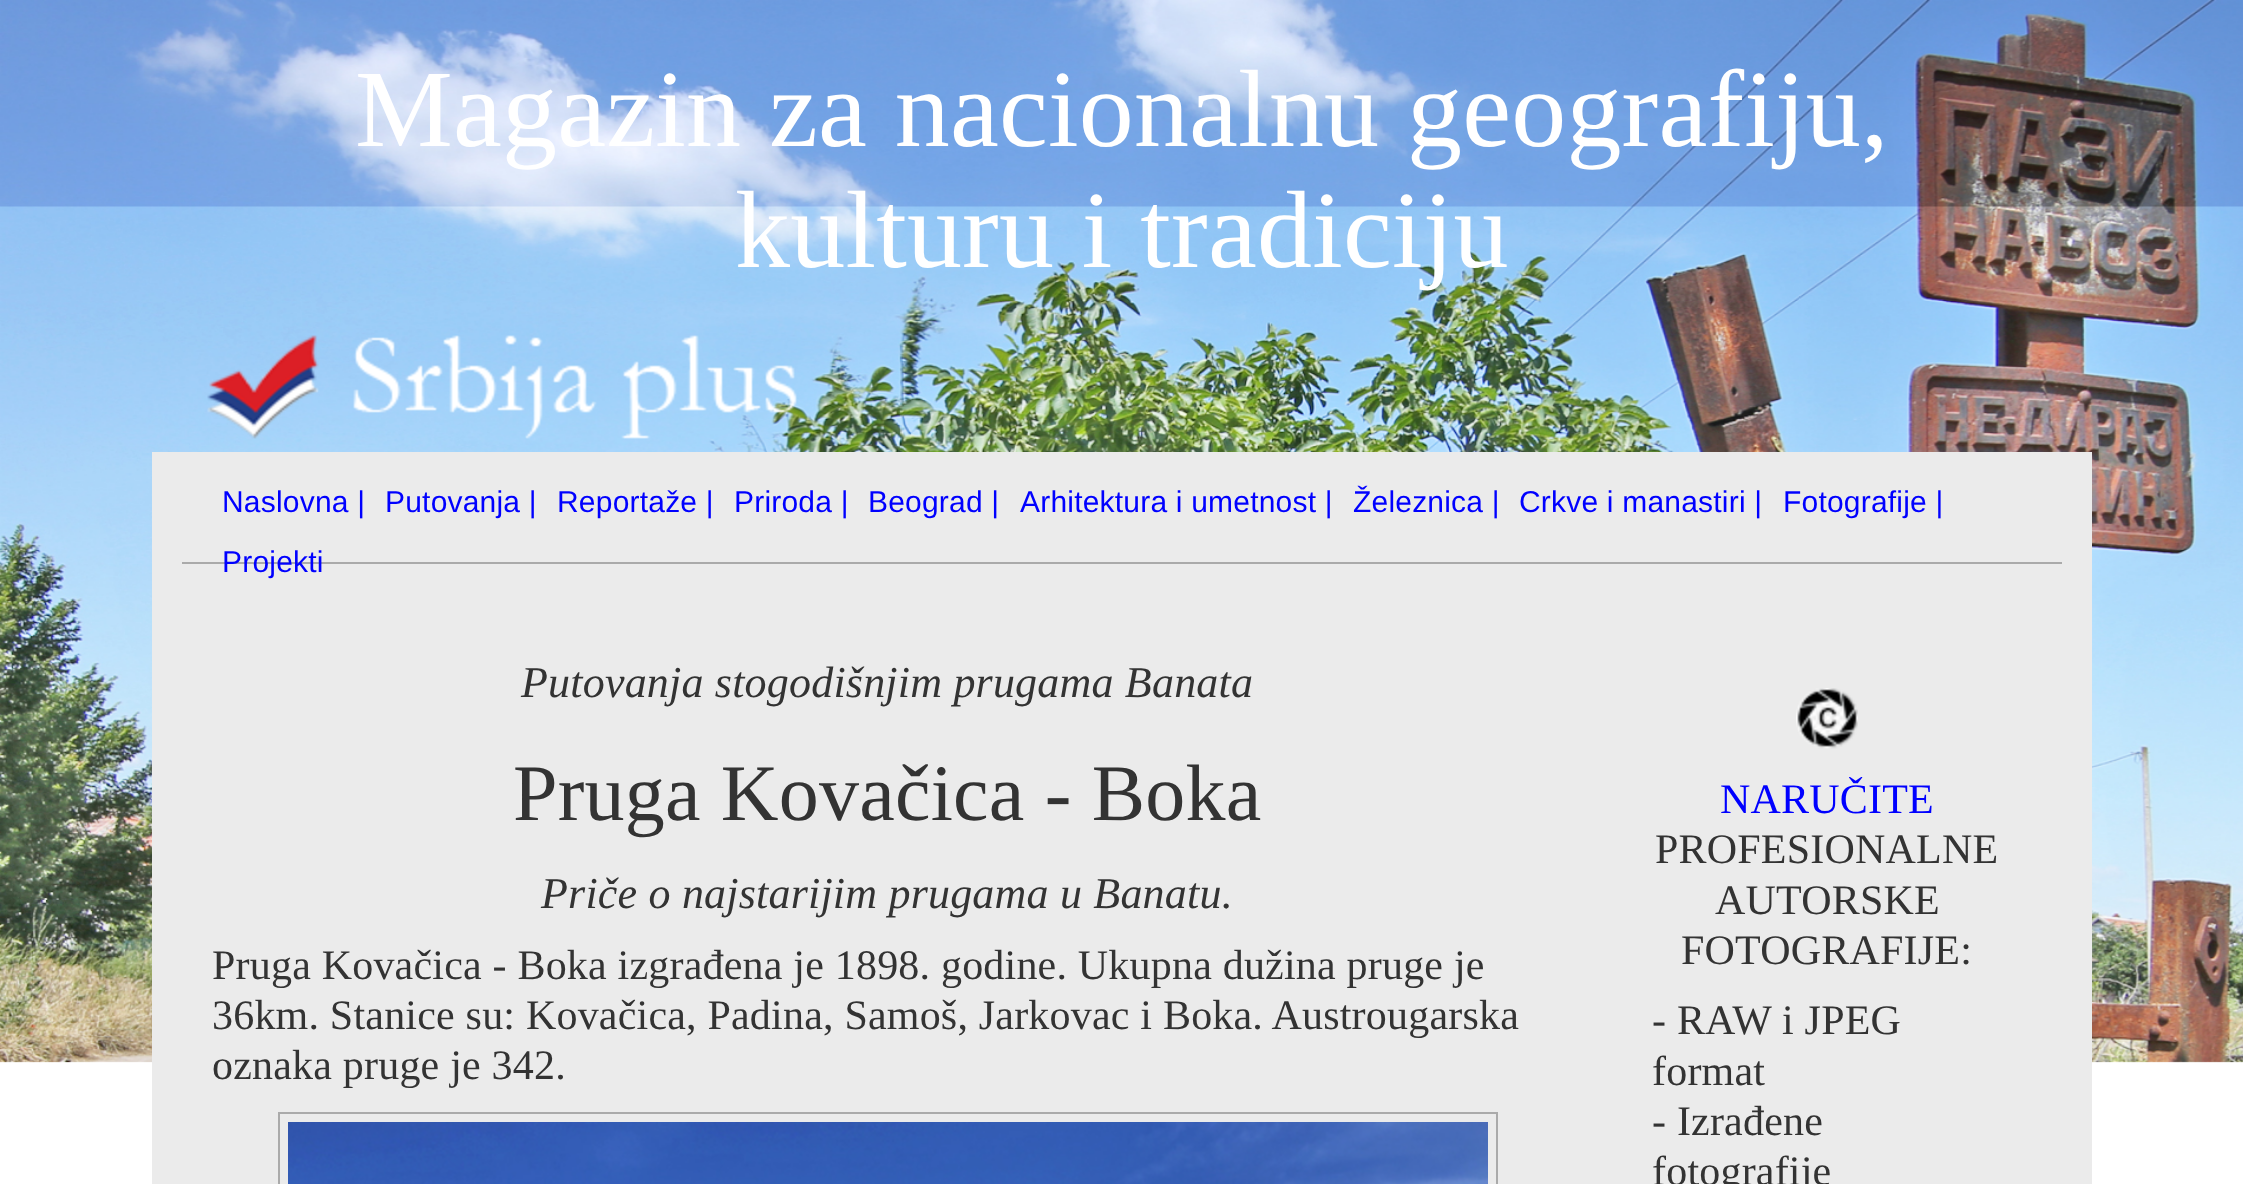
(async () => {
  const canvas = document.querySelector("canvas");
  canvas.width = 2243;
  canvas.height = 1184;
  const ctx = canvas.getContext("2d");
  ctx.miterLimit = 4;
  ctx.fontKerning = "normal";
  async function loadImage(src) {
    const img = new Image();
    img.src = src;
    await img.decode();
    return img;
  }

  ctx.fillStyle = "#ffffff";
  ctx.fillRect(0, 0, 2243, 1184);
  ctx.drawImage(await loadImage("img/1.png"), 0, 0, 2243, 1063);
  ctx.drawImage(await loadImage("img/2.png"), 207, 335, 590, 104);
  ctx.fillStyle = "#ebebeb";
  ctx.fillRect(152, 452, 1940, 732);
  ctx.fillStyle = "#aaaaaa";
  ctx.fillRect(182, 562, 1880, 2);
  ctx.strokeStyle = "#aaaaaa";
  ctx.lineWidth = 2;
  ctx.strokeRect(279, 1113, 1218, 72);
  ctx.drawImage(await loadImage("img/3.png"), 288, 1122, 1200, 62);
  ctx.drawImage(await loadImage("img/4.png"), 1796, 688, 62, 61);
  ctx.letterSpacing = "0.2px";
  ctx.font = "110px Liberation Serif";
  ctx.fillStyle = "#ffffff";
  ctx.fillText("Magazin za nacionalnu geografiju,", 355, 146);
  ctx.fillText("kulturu i tradiciju", 735, 267);
  ctx.font = "30px Liberation Sans";
  ctx.fillStyle = "#0000ff";
  for (const [text, x, y] of [
    ["Naslovna |", 222, 512],
    ["Putovanja |", 385, 512],
    ["Reportaže |", 557, 512],
    ["Priroda |", 734, 512],
    ["Beograd |", 868, 512],
    ["Arhitektura i umetnost |", 1020, 512],
    ["Železnica |", 1353, 512],
    ["Crkve i manastiri |", 1519, 512],
    ["Fotografije |", 1783, 512],
    ["Projekti", 222, 572],
  ]) {
    ctx.fillText(text, x, y);
  }
  ctx.font = "italic 44px Liberation Serif";
  ctx.fillStyle = "#333333";
  ctx.fillText("Putovanja stogodišnjim prugama Banata", 521, 697);
  ctx.font = "80px Liberation Serif";
  ctx.fillText("Pruga Kovačica - Boka", 513, 820);
  ctx.font = "italic 44px Liberation Serif";
  ctx.fillText("Priče o najstarijim prugama u Banatu.", 541, 908);
  ctx.font = "42px Liberation Serif";
  for (const [text, x, y] of [
    ["Pruga Kovačica - Boka izgrađena je 1898. godine. Ukupna dužina pruge je", 212, 979],
    ["36km. Stanice su: Kovačica, Padina, Samoš, Jarkovac i Boka. Austrougarska", 212, 1029],
    ["oznaka pruge je 342.", 212, 1079],
  ]) {
    ctx.fillText(text, x, y);
  }
  ctx.fillStyle = "#0000ff";
  ctx.fillText("NARUČITE", 1720, 813);
  ctx.fillStyle = "#333333";
  for (const [text, x, y] of [
    ["PROFESIONALNE", 1655, 863],
    ["AUTORSKE", 1715, 914],
    ["FOTOGRAFIJE:", 1681, 964],
    ["- RAW i JPEG", 1652, 1034],
    ["format", 1652, 1085],
    ["- Izrađene", 1652, 1135],
    ["fotografije", 1652, 1185],
  ]) {
    ctx.fillText(text, x, y);
  }
})();
